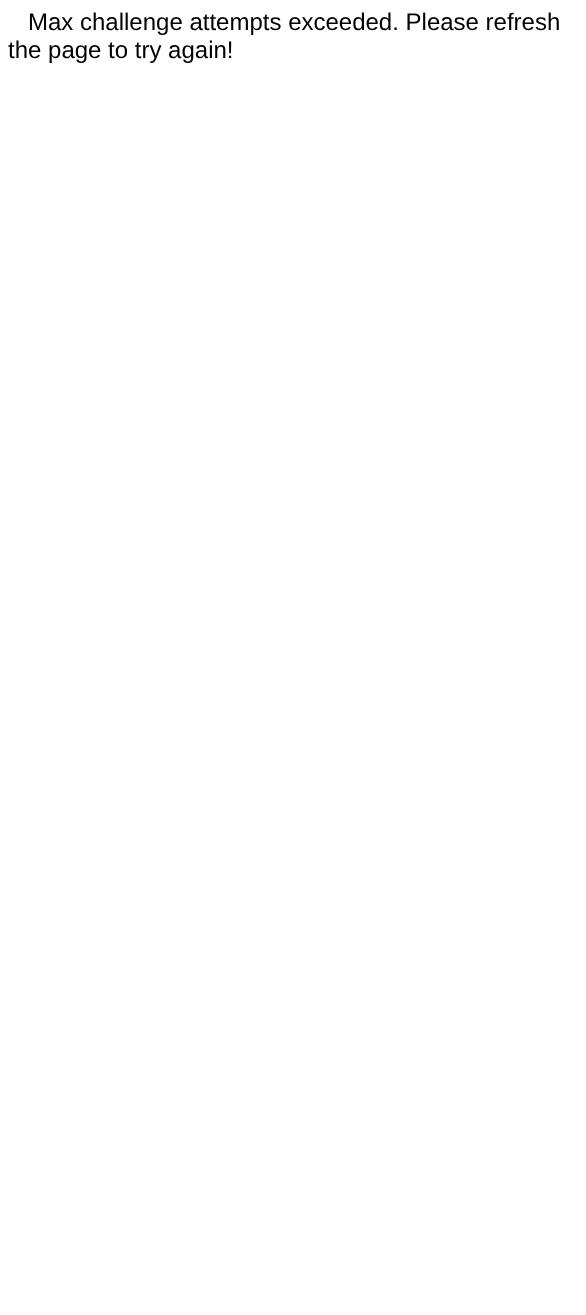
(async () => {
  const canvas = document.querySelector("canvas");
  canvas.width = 586;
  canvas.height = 1315;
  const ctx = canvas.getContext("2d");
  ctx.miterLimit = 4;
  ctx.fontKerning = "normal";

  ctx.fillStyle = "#ffffff";
  ctx.fillRect(0, 0, 586, 1315);
  ctx.font = "24px Liberation Sans";
  ctx.fillStyle = "#000000";
  ctx.fillText("Max challenge attempts exceeded. Please refresh", 28, 30);
  ctx.fillText("the page to try again!", 8, 58);
})();
